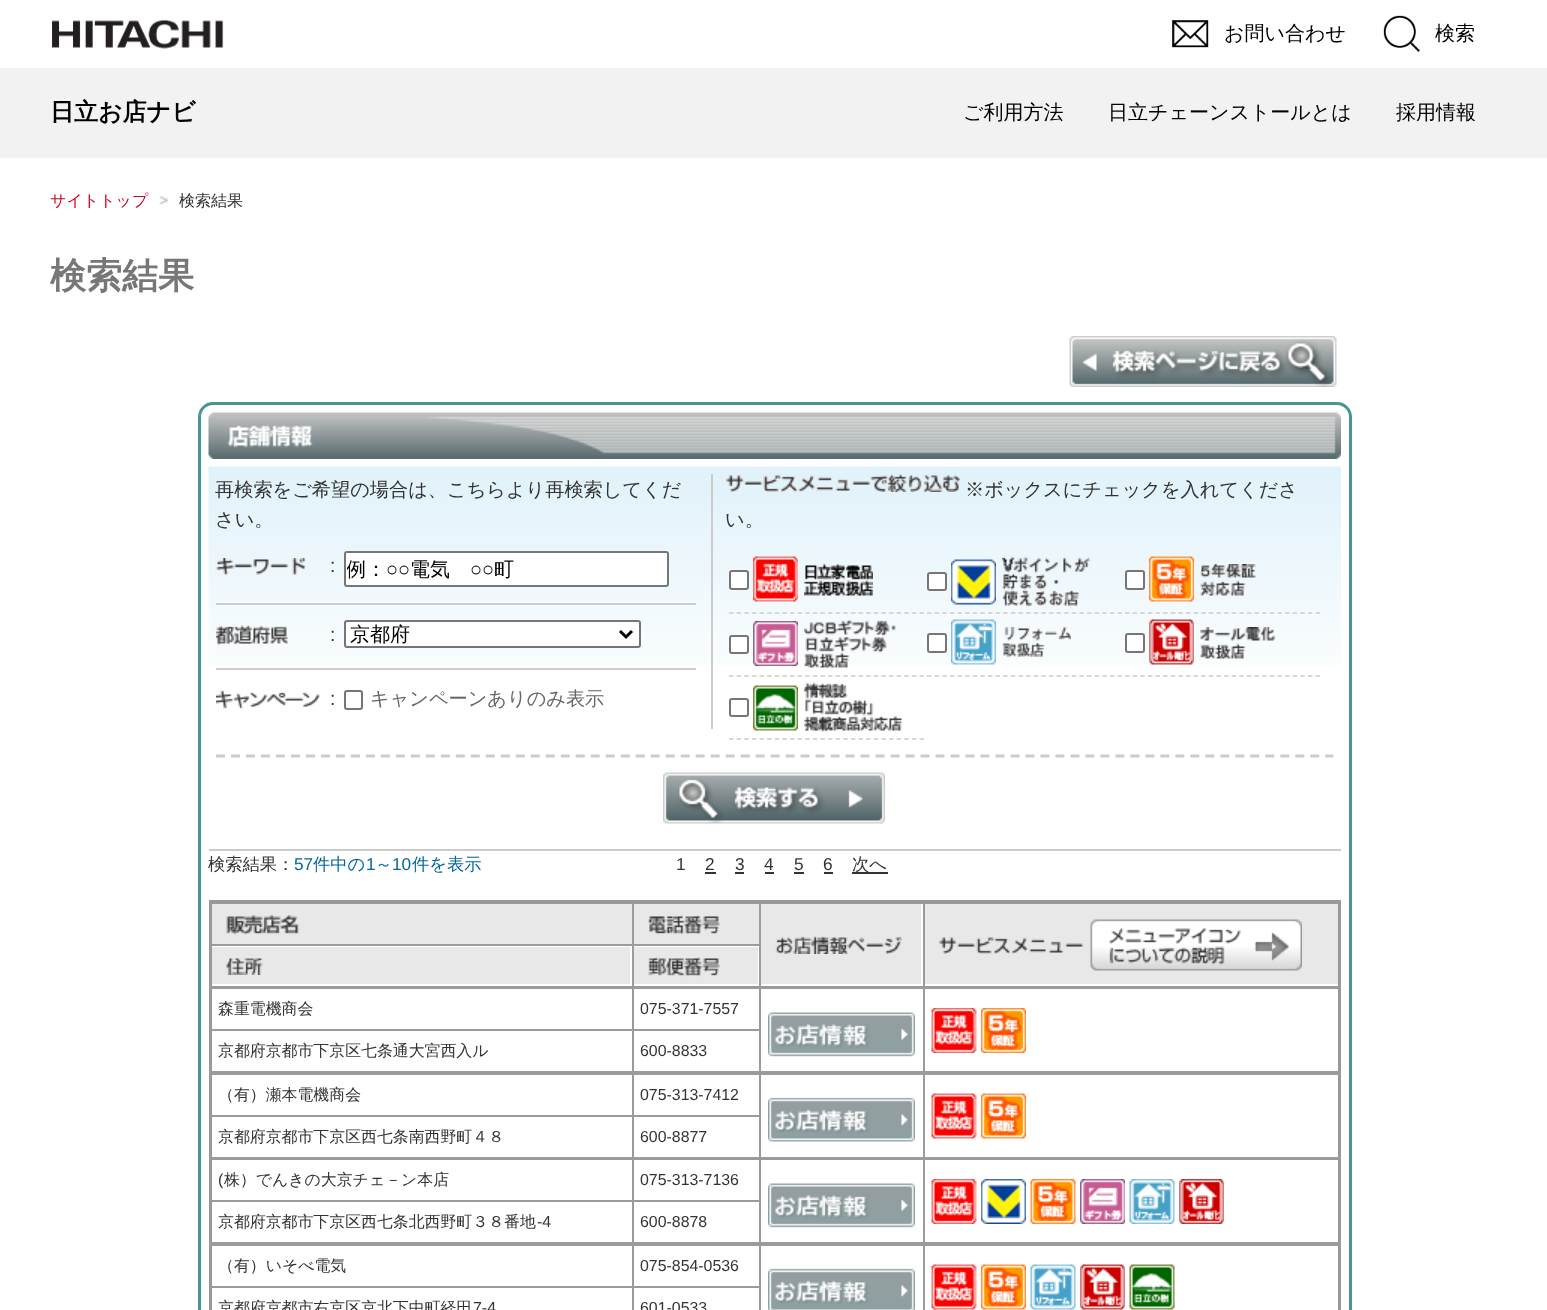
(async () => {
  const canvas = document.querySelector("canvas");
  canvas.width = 1547;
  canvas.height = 1310;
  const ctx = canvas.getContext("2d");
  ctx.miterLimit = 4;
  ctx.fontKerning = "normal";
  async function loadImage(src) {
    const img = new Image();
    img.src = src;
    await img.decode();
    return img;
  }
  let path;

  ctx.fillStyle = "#ffffff";
  ctx.fillRect(0, 0, 1547, 1310);
  ctx.drawImage(await loadImage("img/1.png"), 52, 19, 172, 30);
  ctx.drawImage(await loadImage("img/2.png"), 1172, 20, 37, 28);
  ctx.drawImage(await loadImage("img/3.png"), 1383, 15, 37, 37);
  ctx.fillStyle = "#f2f2f2";
  ctx.fillRect(0, 68, 1547, 90);
  ctx.drawImage(await loadImage("img/4.png"), 159, 196, 9, 9);
  ctx.drawImage(await loadImage("img/5.png"), 1069, 336, 268, 51);
  ctx.beginPath();
  ctx.roundRect(199.5, 403.5, 1151, 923, 13.5);
  ctx.strokeStyle = "#499494";
  ctx.lineWidth = 3;
  ctx.stroke();
  ctx.drawImage(await loadImage("img/6.png"), 208, 412, 1133, 47);
  ctx.drawImage(await loadImage("img/7.png"), 208, 466, 1133, 199);
  ctx.fillStyle = "#cccccc";
  ctx.fillRect(209, 849, 1132, 2);
  ctx.fillRect(711, 474, 2, 255);
  ctx.drawImage(await loadImage("img/8.png"), 216, 558, 90, 17);
  ctx.fillStyle = "#ffffff";
  ctx.beginPath();
  ctx.roundRect(345, 552, 323, 34, 2);
  ctx.fill();
  ctx.strokeStyle = "#767676";
  ctx.lineWidth = 2;
  ctx.stroke();
  ctx.fillRect(216, 602, 480, 1);
  ctx.fillStyle = "#cccccc";
  ctx.fillRect(216, 603, 480, 2);
  ctx.drawImage(await loadImage("img/9.png"), 216, 625, 72, 20);
  ctx.fillStyle = "#ffffff";
  ctx.beginPath();
  ctx.roundRect(345, 621, 295, 26, 2);
  ctx.fill();
  ctx.stroke();
  path = new Path2D("M620 631L626 637L632 631");
  ctx.strokeStyle = "#000000";
  ctx.lineWidth = 3;
  ctx.stroke(path);
  ctx.fillStyle = "#cccccc";
  ctx.fillRect(216, 668, 480, 2);
  ctx.drawImage(await loadImage("img/10.png"), 216, 690, 104, 19);
  ctx.beginPath();
  ctx.roundRect(345, 691, 17, 18, 2);
  ctx.strokeStyle = "#767676";
  ctx.lineWidth = 2;
  ctx.stroke();
  ctx.drawImage(await loadImage("img/11.png"), 726, 474, 234, 18);
  path = new Path2D("M729 613H924");
  ctx.strokeStyle = "#cccccc";
  ctx.lineWidth = 1.5;
  ctx.setLineDash([4.5, 3.12]);
  ctx.stroke(path);
  ctx.fillStyle = "#ffffff";
  ctx.beginPath();
  ctx.roundRect(730, 571, 18, 18, 2);
  ctx.fill();
  ctx.strokeStyle = "#767676";
  ctx.lineWidth = 2;
  ctx.setLineDash([]);
  ctx.stroke();
  ctx.drawImage(await loadImage("img/12.png"), 753, 556, 45, 46);
  ctx.drawImage(await loadImage("img/13.png"), 804, 564, 69, 32);
  path = new Path2D("M927 613H1122");
  ctx.strokeStyle = "#cccccc";
  ctx.lineWidth = 1.5;
  ctx.setLineDash([4.5, 3.12]);
  ctx.stroke(path);
  ctx.beginPath();
  ctx.roundRect(928, 573, 18, 17, 2);
  ctx.fill();
  ctx.strokeStyle = "#767676";
  ctx.lineWidth = 2;
  ctx.setLineDash([]);
  ctx.stroke();
  ctx.drawImage(await loadImage("img/14.png"), 951, 559, 45, 46);
  ctx.drawImage(await loadImage("img/15.png"), 1002, 556, 89, 50);
  path = new Path2D("M1125 613H1320");
  ctx.strokeStyle = "#cccccc";
  ctx.lineWidth = 1.5;
  ctx.setLineDash([4.5, 3.12]);
  ctx.stroke(path);
  ctx.beginPath();
  ctx.roundRect(1126, 571, 18, 18, 2);
  ctx.fill();
  ctx.strokeStyle = "#767676";
  ctx.lineWidth = 2;
  ctx.setLineDash([]);
  ctx.stroke();
  ctx.drawImage(await loadImage("img/16.png"), 1149, 556, 45, 46);
  ctx.drawImage(await loadImage("img/17.png"), 1200, 564, 56, 32);
  path = new Path2D("M729 676H924");
  ctx.strokeStyle = "#cccccc";
  ctx.lineWidth = 1.5;
  ctx.setLineDash([4.5, 3.12]);
  ctx.stroke(path);
  ctx.beginPath();
  ctx.roundRect(730, 636, 18, 17, 2);
  ctx.fill();
  ctx.strokeStyle = "#767676";
  ctx.lineWidth = 2;
  ctx.setLineDash([]);
  ctx.stroke();
  ctx.drawImage(await loadImage("img/18.png"), 753, 621, 45, 45);
  ctx.drawImage(await loadImage("img/19.png"), 804, 619, 92, 49);
  path = new Path2D("M927 676H1122");
  ctx.strokeStyle = "#cccccc";
  ctx.lineWidth = 1.5;
  ctx.setLineDash([4.5, 3.12]);
  ctx.stroke(path);
  ctx.beginPath();
  ctx.roundRect(928, 634, 18, 18, 2);
  ctx.fill();
  ctx.strokeStyle = "#767676";
  ctx.lineWidth = 2;
  ctx.setLineDash([]);
  ctx.stroke();
  ctx.drawImage(await loadImage("img/20.png"), 951, 619, 45, 46);
  ctx.drawImage(await loadImage("img/21.png"), 1002, 627, 69, 30);
  path = new Path2D("M1125 676H1320");
  ctx.strokeStyle = "#cccccc";
  ctx.lineWidth = 1.5;
  ctx.setLineDash([4.5, 3.12]);
  ctx.stroke(path);
  ctx.beginPath();
  ctx.roundRect(1126, 634, 18, 18, 2);
  ctx.fill();
  ctx.strokeStyle = "#767676";
  ctx.lineWidth = 2;
  ctx.setLineDash([]);
  ctx.stroke();
  ctx.drawImage(await loadImage("img/22.png"), 1149, 619, 45, 46);
  ctx.drawImage(await loadImage("img/23.png"), 1200, 627, 75, 32);
  path = new Path2D("M729 739H924");
  ctx.strokeStyle = "#cccccc";
  ctx.lineWidth = 1.5;
  ctx.setLineDash([4.5, 3.12]);
  ctx.stroke(path);
  ctx.beginPath();
  ctx.roundRect(730, 699, 18, 17, 2);
  ctx.strokeStyle = "#767676";
  ctx.lineWidth = 2;
  ctx.setLineDash([]);
  ctx.stroke();
  ctx.drawImage(await loadImage("img/24.png"), 753, 685, 45, 46);
  ctx.drawImage(await loadImage("img/25.png"), 804, 682, 98, 50);
  path = new Path2D("M216 756H1333.5");
  ctx.strokeStyle = "#cccccc";
  ctx.lineWidth = 3;
  ctx.setLineDash([9, 5.99]);
  ctx.stroke(path);
  ctx.drawImage(await loadImage("img/26.png"), 663, 772, 222, 52);
  for (const [x, y, w, h, color] of [
    [705, 872, 11, 2, "#333333"],
    [735, 872, 9, 2, "#333333"],
    [765, 872, 9, 2, "#333333"],
    [794, 872, 10, 2, "#333333"],
    [824, 872, 9, 2, "#333333"],
    [852, 872, 36, 2, "#333333"],
    [923, 903, 417, 1, "#9c9a9a"],
    [923, 1074, 417, 1, "#9c9a9a"],
    [923, 1245, 417, 1, "#9c9a9a"],
    [923, 1158, 2, 152, "#9c9a9a"],
    [923, 987, 2, 173, "#9c9a9a"],
    [923, 902, 2, 87, "#9c9a9a"],
    [759, 903, 165, 1, "#9c9a9a"],
    [632, 944, 129, 2, "#9c9a9a"],
    [632, 1029, 129, 2, "#9c9a9a"],
    [759, 1074, 165, 1, "#9c9a9a"],
    [632, 1115, 129, 2, "#9c9a9a"],
    [632, 1200, 129, 2, "#9c9a9a"],
    [759, 1245, 165, 1, "#9c9a9a"],
    [632, 1286, 129, 2, "#9c9a9a"],
    [759, 1244, 2, 66, "#9c9a9a"],
    [759, 1158, 2, 87, "#9c9a9a"],
    [759, 1073, 2, 87, "#9c9a9a"],
    [759, 987, 2, 87, "#9c9a9a"],
    [759, 902, 2, 87, "#9c9a9a"],
    [632, 903, 129, 1, "#9c9a9a"],
    [632, 1074, 129, 1, "#9c9a9a"],
    [632, 1245, 129, 1, "#9c9a9a"],
    [632, 1286, 2, 24, "#9c9a9a"],
    [209, 1286, 424, 2, "#9c9a9a"],
    [632, 1244, 2, 43, "#9c9a9a"],
    [632, 1200, 2, 45, "#9c9a9a"],
    [209, 1200, 424, 2, "#9c9a9a"],
    [632, 1158, 2, 44, "#9c9a9a"],
    [632, 1115, 2, 45, "#9c9a9a"],
    [209, 1115, 424, 2, "#9c9a9a"],
    [632, 1073, 2, 43, "#9c9a9a"],
    [632, 1029, 2, 45, "#9c9a9a"],
    [209, 1029, 424, 2, "#9c9a9a"],
    [632, 987, 2, 44, "#9c9a9a"],
    [632, 944, 2, 45, "#9c9a9a"],
    [209, 944, 424, 2, "#9c9a9a"],
    [632, 902, 2, 43, "#9c9a9a"],
    [209, 900, 1132, 3, "#999999"],
    [1338, 900, 3, 410, "#999999"],
    [209, 903, 424, 1, "#9c9a9a"],
    [209, 1074, 424, 1, "#9c9a9a"],
    [209, 1245, 424, 1, "#9c9a9a"],
    [209, 900, 3, 410, "#999999"],
    [634, 904, 125, 40, "#e8e8e8"],
  ]) {
    ctx.fillStyle = color;
    ctx.fillRect(x, y, w, h);
  }
  ctx.drawImage(await loadImage("img/27.png"), 648, 915, 72, 20);
  for (const [x, y, w, h, color] of [
    [925, 904, 413, 80, "#e8e8e8"],
    [209, 986, 552, 3, "#9c9a9a"],
    [758, 986, 583, 3, "#9c9a9a"],
  ]) {
    ctx.fillStyle = color;
    ctx.fillRect(x, y, w, h);
  }
  ctx.drawImage(await loadImage("img/28.png"), 939, 937, 144, 17);
  ctx.drawImage(await loadImage("img/29.png"), 1090, 919, 212, 52);
  ctx.fillStyle = "#e8e8e8";
  ctx.fillRect(212, 904, 420, 40);
  ctx.drawImage(await loadImage("img/30.png"), 226, 915, 73, 20);
  ctx.fillRect(761, 904, 160, 80);
  ctx.drawImage(await loadImage("img/31.png"), 775, 936, 127, 18);
  ctx.fillRect(212, 947, 418, 37);
  ctx.drawImage(await loadImage("img/32.png"), 226, 958, 37, 17);
  ctx.fillRect(634, 947, 124, 37);
  ctx.drawImage(await loadImage("img/33.png"), 648, 957, 72, 20);
  ctx.drawImage(await loadImage("img/34.png"), 768, 1012, 147, 45);
  ctx.fillStyle = "#9c9a9a";
  ctx.fillRect(209, 1071, 552, 3);
  ctx.fillRect(758, 1071, 583, 3);
  ctx.drawImage(await loadImage("img/35.png"), 931, 1008, 46, 45);
  ctx.drawImage(await loadImage("img/36.png"), 981, 1008, 45, 45);
  ctx.fillRect(209, 1157, 552, 3);
  ctx.fillRect(758, 1157, 583, 3);
  ctx.drawImage(await loadImage("img/37.png"), 931, 1093, 46, 46);
  ctx.drawImage(await loadImage("img/38.png"), 981, 1093, 45, 46);
  ctx.drawImage(await loadImage("img/39.png"), 768, 1097, 147, 45);
  ctx.drawImage(await loadImage("img/34.png"), 768, 1183, 147, 45);
  ctx.fillRect(209, 1242, 552, 3);
  ctx.fillRect(758, 1242, 583, 3);
  ctx.drawImage(await loadImage("img/35.png"), 931, 1179, 46, 45);
  ctx.drawImage(await loadImage("img/40.png"), 981, 1179, 45, 45);
  ctx.drawImage(await loadImage("img/41.png"), 1030, 1179, 46, 45);
  ctx.drawImage(await loadImage("img/42.png"), 1080, 1179, 45, 45);
  ctx.drawImage(await loadImage("img/43.png"), 1129, 1179, 46, 45);
  ctx.drawImage(await loadImage("img/44.png"), 1179, 1179, 45, 45);
  ctx.drawImage(await loadImage("img/45.png"), 768, 1268, 147, 42);
  ctx.drawImage(await loadImage("img/37.png"), 931, 1264, 46, 46);
  ctx.drawImage(await loadImage("img/38.png"), 981, 1264, 45, 46);
  ctx.drawImage(await loadImage("img/46.png"), 1030, 1264, 46, 46);
  ctx.drawImage(await loadImage("img/47.png"), 1080, 1264, 45, 46);
  ctx.drawImage(await loadImage("img/48.png"), 1129, 1264, 46, 46);
  ctx.font = "500 20px WenQuanYi Zen Hei";
  ctx.fillStyle = "#000000";
  ctx.fillText("お問い合わせ", 1224, 40);
  ctx.fillText("検索", 1435, 40);
  ctx.font = "bold 24px WenQuanYi Zen Hei";
  ctx.fillText("日立お店ナビ", 50, 120);
  ctx.font = "500 20px WenQuanYi Zen Hei";
  for (const [text, x, y] of [
    ["ご利用方法", 963, 119],
    ["日立チェーンストールとは", 1108, 119],
    ["採用情報", 1396, 119],
  ]) {
    ctx.fillText(text, x, y);
  }
  ctx.font = "500 16px WenQuanYi Zen Hei";
  ctx.fillStyle = "#cc0022";
  ctx.fillText("サイトトップ", 50, 206);
  ctx.fillStyle = "#333333";
  ctx.fillText("検索結果", 179, 206);
  ctx.font = "bold 36px WenQuanYi Zen Hei";
  ctx.fillStyle = "#777777";
  ctx.fillText("検索結果", 50, 288);
  ctx.font = "500 19.2px WenQuanYi Zen Hei";
  ctx.fillStyle = "#333333";
  ctx.fillText("再検索をご希望の場合は、こちらより再検索してくだ", 215, 496);
  ctx.fillText("さい。", 215, 526);
  ctx.font = "19.2px Liberation Sans";
  ctx.fillText(":", 330, 572);
  ctx.save();
  ctx.beginPath();
  ctx.rect(347, 554, 319, 30);
  ctx.clip();
  ctx.font = "500 20px WenQuanYi Zen Hei";
  ctx.fillStyle = "#000000";
  ctx.fillText("例：", 346, 576);
  ctx.restore();
  ctx.font = "20px Liberation Sans";
  ctx.fillStyle = "#000000";
  ctx.fillText("○○", 386, 576);
  ctx.font = "500 20px WenQuanYi Zen Hei";
  ctx.fillText("電気", 410, 576);
  ctx.font = "20px Liberation Sans";
  ctx.fillText("○○", 470, 576);
  ctx.font = "500 20px WenQuanYi Zen Hei";
  ctx.fillText("町", 494, 576);
  ctx.font = "19.2px Liberation Sans";
  ctx.fillStyle = "#333333";
  ctx.fillText(":", 330, 641);
  ctx.font = "500 20px WenQuanYi Zen Hei";
  ctx.fillStyle = "#000000";
  ctx.fillText("京都府", 350, 641);
  ctx.font = "19.2px Liberation Sans";
  ctx.fillStyle = "#333333";
  ctx.fillText(":", 330, 705);
  ctx.font = "500 19.2px WenQuanYi Zen Hei";
  ctx.fillStyle = "#666666";
  ctx.fillText("キャンペーンありのみ表示", 370, 705);
  ctx.fillStyle = "#333333";
  ctx.fillText("※ボックスにチェックを入れてくださ", 965, 496);
  ctx.fillText("い。", 725, 526);
  ctx.font = "500 17.25px WenQuanYi Zen Hei";
  ctx.fillText("検索結果：", 208, 870);
  ctx.font = "17.25px Liberation Sans";
  ctx.fillStyle = "#006699";
  ctx.fillText("57", 294, 870);
  ctx.font = "500 17.25px WenQuanYi Zen Hei";
  ctx.fillText("件中の", 313, 870);
  ctx.font = "17.25px Liberation Sans";
  ctx.fillText("1", 366, 870);
  ctx.font = "500 17.25px WenQuanYi Zen Hei";
  ctx.fillText("～", 375, 870);
  ctx.font = "17.25px Liberation Sans";
  ctx.fillText("10", 392, 870);
  ctx.font = "500 17.25px WenQuanYi Zen Hei";
  ctx.fillText("件を表示", 412, 870);
  ctx.font = "17.25px Liberation Sans";
  ctx.fillStyle = "#333333";
  for (const [text, x, y] of [
    ["1", 676, 870],
    ["2", 705, 870],
    ["3", 735, 870],
    ["4", 764, 870],
    ["5", 794, 870],
    ["6", 823, 870],
  ]) {
    ctx.fillText(text, x, y);
  }
  ctx.font = "500 17.25px WenQuanYi Zen Hei";
  ctx.fillText("次へ", 852, 870);
  ctx.font = "500 15.9px WenQuanYi Zen Hei";
  ctx.fillText("森重電機商会", 218, 1014);
  ctx.font = "15.9px Liberation Sans";
  ctx.fillText("075-371-7557", 640, 1014);
  ctx.font = "500 15.9px WenQuanYi Zen Hei";
  ctx.fillText("京都府京都市下京区七条通大宮西入ル", 218, 1056);
  ctx.font = "15.9px Liberation Sans";
  ctx.fillText("600-8833", 640, 1056);
  ctx.font = "500 15.9px WenQuanYi Zen Hei";
  ctx.fillText("（有）瀬本電機商会", 218, 1100);
  ctx.font = "15.9px Liberation Sans";
  ctx.fillText("075-313-7412", 640, 1100);
  ctx.font = "500 15.9px WenQuanYi Zen Hei";
  ctx.fillText("京都府京都市下京区西七条南西野町４８", 218, 1142);
  ctx.font = "15.9px Liberation Sans";
  ctx.fillText("600-8877", 640, 1142);
  ctx.fillText("(", 218, 1185);
  ctx.font = "500 15.9px WenQuanYi Zen Hei";
  ctx.fillText("株）でんきの大京チェ－ン本店", 224, 1185);
  ctx.font = "15.9px Liberation Sans";
  ctx.fillText("075-313-7136", 640, 1185);
  ctx.font = "500 15.9px WenQuanYi Zen Hei";
  ctx.fillText("京都府京都市下京区西七条北西野町３８番地", 218, 1227);
  ctx.font = "15.9px Liberation Sans";
  ctx.fillText("-4", 537, 1227);
  ctx.fillText("600-8878", 640, 1227);
  ctx.font = "500 15.9px WenQuanYi Zen Hei";
  ctx.fillText("（有）いそべ電気", 218, 1271);
  ctx.font = "15.9px Liberation Sans";
  ctx.fillText("075-854-0536", 640, 1271);
  ctx.font = "500 15.9px WenQuanYi Zen Hei";
  ctx.fillText("京都府京都市右京区京北下中町経田", 218, 1313);
  ctx.font = "15.9px Liberation Sans";
  ctx.fillText("7-4", 473, 1313);
  ctx.fillText("601-0533", 640, 1313);
})();
